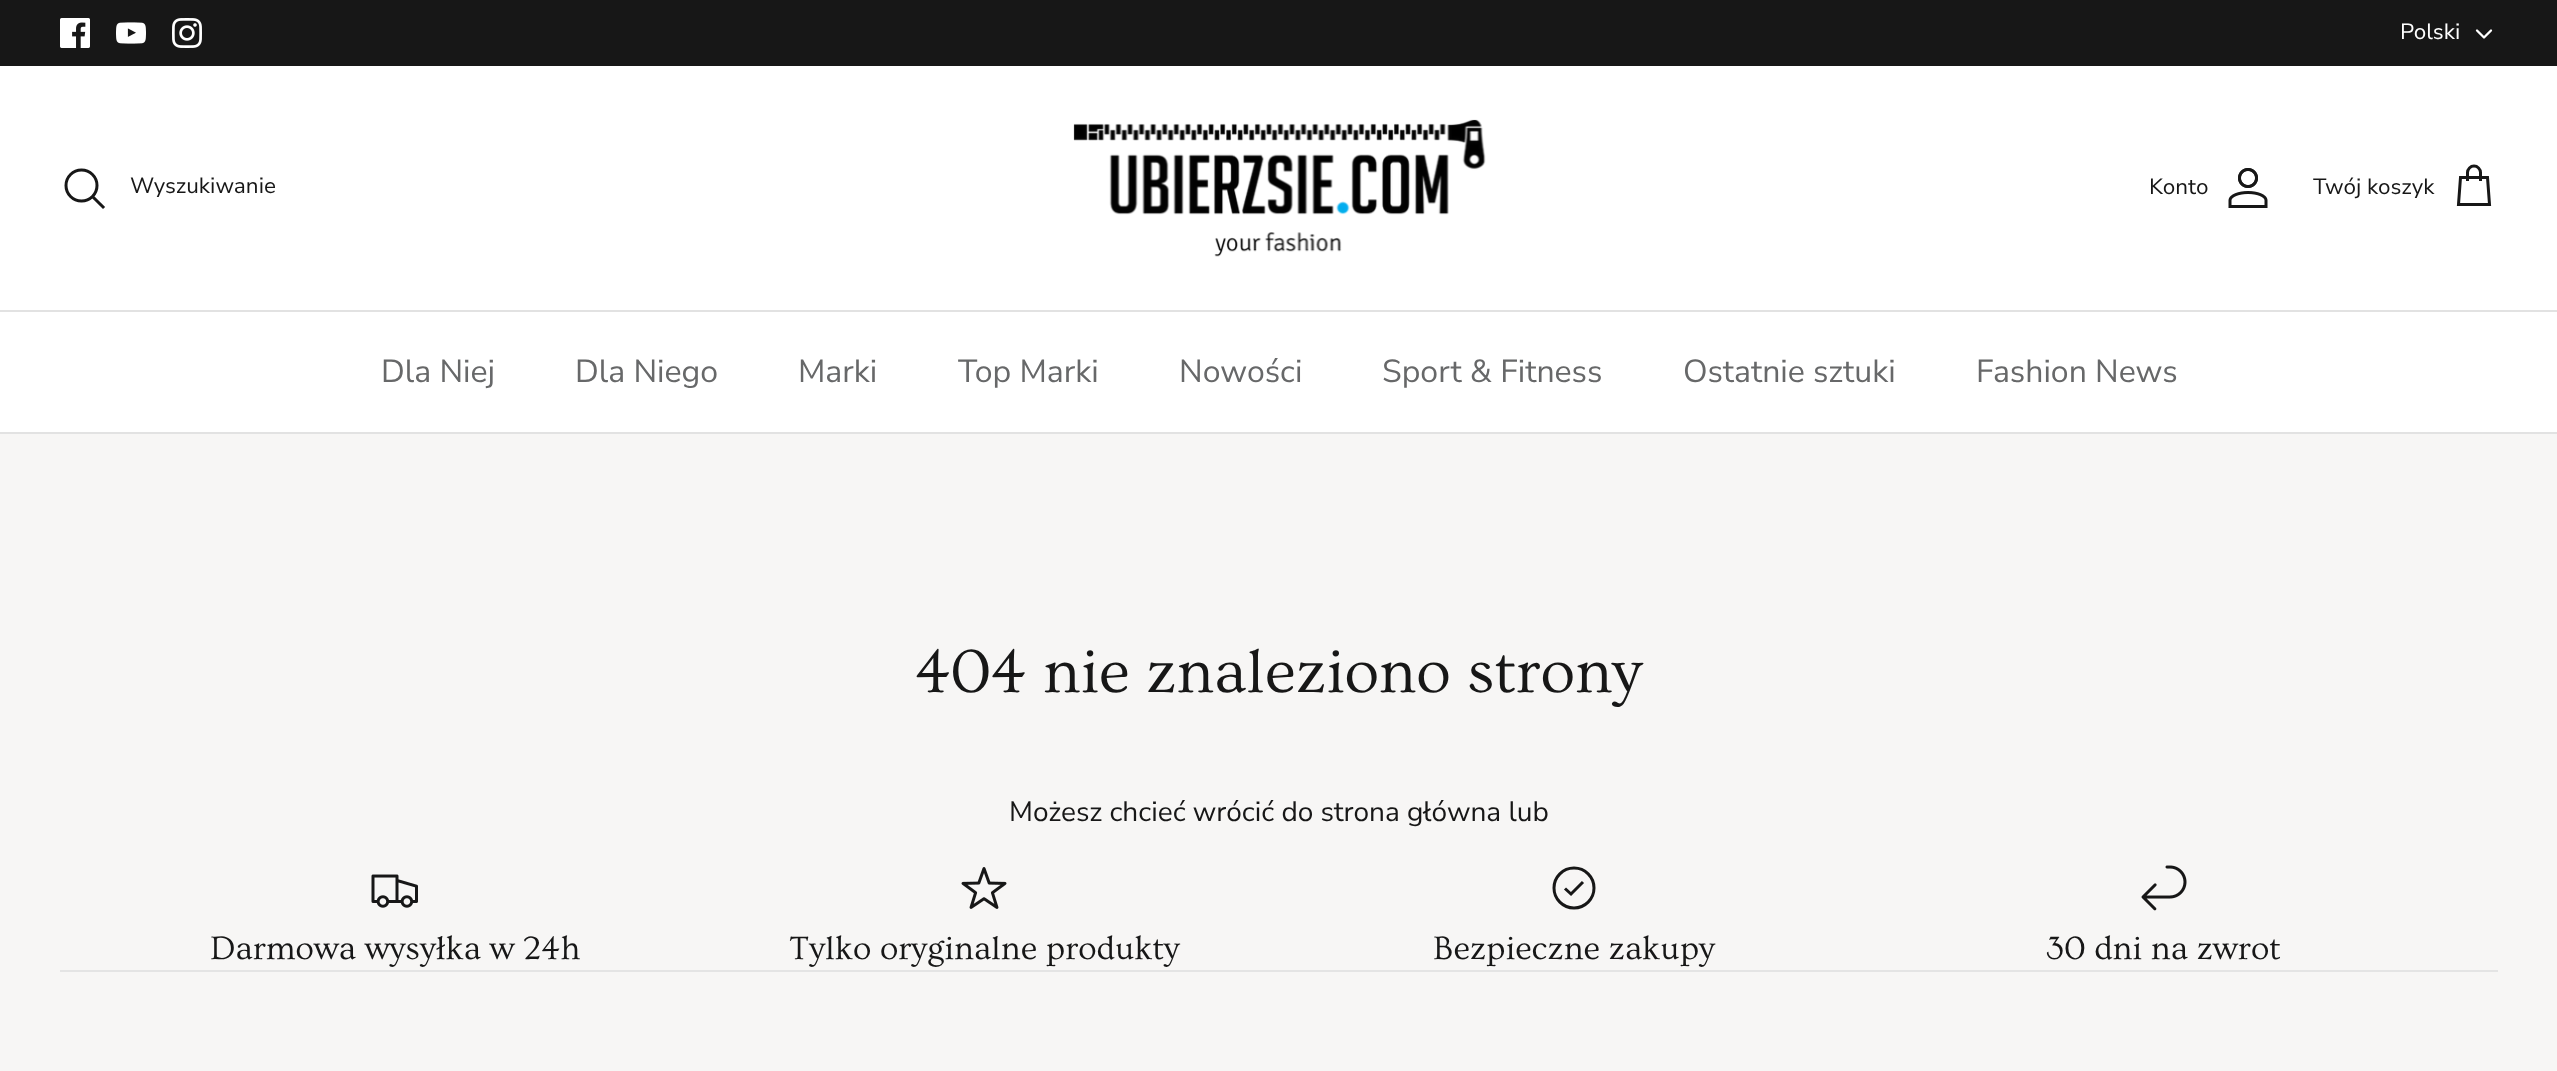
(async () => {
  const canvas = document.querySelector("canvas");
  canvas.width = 2557;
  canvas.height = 1071;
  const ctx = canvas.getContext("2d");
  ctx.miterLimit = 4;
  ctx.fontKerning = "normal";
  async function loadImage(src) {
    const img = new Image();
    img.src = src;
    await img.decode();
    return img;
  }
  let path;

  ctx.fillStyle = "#f7f6f5";
  ctx.fillRect(0, 0, 2557, 1071);
  ctx.fillStyle = "#171717";
  ctx.fillRect(0, 0, 2557, 66);
  ctx.drawImage(await loadImage("img/1.png"), 60, 18, 30, 30);
  ctx.drawImage(await loadImage("img/2.png"), 116, 22, 30, 22);
  ctx.drawImage(await loadImage("img/3.png"), 172, 18, 30, 30);
  path = new Path2D("M2477 30.5L2484 37.5L2491 30.5");
  ctx.strokeStyle = "#ffffff";
  ctx.lineWidth = 2.3;
  ctx.lineCap = "round";
  ctx.lineJoin = "round";
  ctx.stroke(path);
  ctx.fillStyle = "#ffffff";
  ctx.fillRect(0, 66, 2557, 244);
  ctx.fillStyle = "#e2e2e2";
  ctx.fillRect(0, 310, 2557, 2);
  ctx.beginPath();
  ctx.arc(81.5, 185.5, 15.5, 0, Math.PI * 2);
  ctx.strokeStyle = "#171717";
  ctx.lineWidth = 3;
  ctx.stroke();
  path = new Path2D("M94 198L103 207");
  ctx.lineCap = "square";
  ctx.lineJoin = "miter";
  ctx.stroke(path);
  ctx.drawImage(await loadImage("img/4.png"), 1073, 119, 413, 138);
  ctx.drawImage(await loadImage("img/5.png"), 2228, 168, 40, 40);
  path = new Path2D("M2480.5 181V172.5C2480.5 169 2477.5 166 2474 166C2470.5 166 2467.5 169 2467.5 172.5V181M2460.5 177.5H2487.5L2489.5 204.5H2458.5Z");
  ctx.lineCap = "butt";
  ctx.stroke(path);
  ctx.fillRect(0, 432, 2557, 2);
  ctx.fillStyle = "#ffffff";
  ctx.fillRect(0, 312, 2557, 120);
  ctx.drawImage(await loadImage("img/6.png"), 371, 874, 47, 34);
  ctx.drawImage(await loadImage("img/7.png"), 961, 867, 46, 42);
  ctx.beginPath();
  ctx.arc(1574, 888, 20, 0, Math.PI * 2);
  ctx.stroke();
  path = new Path2D("M1583 882L1571 894L1565 888.5");
  ctx.stroke(path);
  ctx.drawImage(await loadImage("img/8.png"), 2141, 865, 46, 46);
  ctx.fillStyle = "#e4e4e4";
  ctx.fillRect(60, 970, 2438, 2);
  ctx.font = "22px 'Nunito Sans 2'";
  ctx.fillStyle = "#ffffff";
  ctx.fillText("Polski", 2400, 39);
  ctx.fillStyle = "#171717";
  for (const [text, x, y] of [
    ["Wyszukiwanie", 130, 193],
    ["Konto", 2149, 194],
    ["Twój koszyk", 2313, 194],
  ]) {
    ctx.fillText(text, x, y);
  }
  ctx.font = "32px Nunito Sans";
  ctx.fillStyle = "#676869";
  for (const [text, x, y] of [
    ["Dla Niej", 381, 382],
    ["Dla Niego", 575, 382],
    ["Marki", 798, 382],
    ["Top Marki", 958, 382],
    ["Nowości", 1179, 382],
    ["Sport & Fitness", 1382, 382],
    ["Ostatnie sztuki", 1683, 382],
    ["Fashion News", 1976, 382],
  ]) {
    ctx.fillText(text, x, y);
  }
  ctx.font = "64px Ovo";
  ctx.fillStyle = "#171717";
  ctx.fillText("404 nie znaleziono strony", 915, 692);
  ctx.font = "28px Nunito Sans";
  ctx.fillText("Możesz chcieć wrócić do strona główna lub", 1009, 821);
  ctx.font = "34px Ovo";
  for (const [text, x, y] of [
    ["Darmowa wysyłka w 24h", 210, 959],
    ["Tylko oryginalne produkty", 789, 959],
    ["Bezpieczne zakupy", 1433, 959],
    ["30 dni na zwrot", 2046, 959],
  ]) {
    ctx.fillText(text, x, y);
  }
})();
